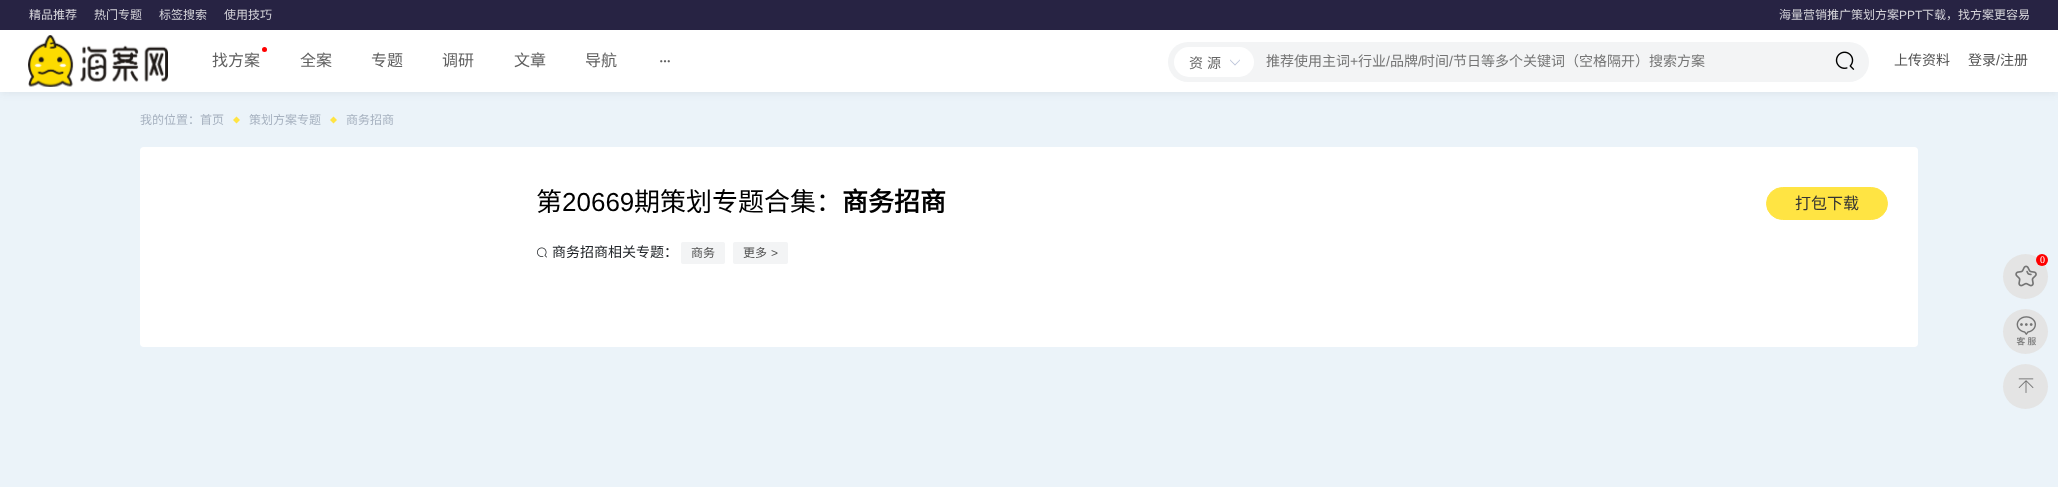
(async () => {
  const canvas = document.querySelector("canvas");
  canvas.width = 2058;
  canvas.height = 487;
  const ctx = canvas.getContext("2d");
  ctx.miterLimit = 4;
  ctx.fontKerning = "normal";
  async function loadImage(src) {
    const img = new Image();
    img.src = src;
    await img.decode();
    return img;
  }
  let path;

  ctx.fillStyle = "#ebf3f9";
  ctx.fillRect(0, 0, 2058, 487);
  ctx.fillStyle = "rgba(54, 55, 69, 0.1)";
  ctx.filter = "blur(5px)";
  ctx.beginPath();
  ctx.rect(0, 0, 2058, 92);
  ctx.fill();
  ctx.filter = "none";
  ctx.fillStyle = "#ffffff";
  ctx.fillRect(0, 30, 2058, 62);
  ctx.fillStyle = "#272343";
  ctx.fillRect(0, 0, 2058, 30);
  ctx.drawImage(await loadImage("img/1.png"), 28, 35, 140, 52);
  ctx.fillStyle = "#ff0000";
  ctx.beginPath();
  ctx.arc(264.5, 49.5, 2.5, 0, Math.PI * 2);
  ctx.fill();
  ctx.drawImage(await loadImage("img/2.png"), 660, 60, 10, 3);
  ctx.fillStyle = "#f3f4f5";
  ctx.beginPath();
  ctx.roundRect(1168, 42, 701, 40, 20);
  ctx.fill();
  ctx.fillStyle = "#ffffff";
  ctx.beginPath();
  ctx.roundRect(1174, 47, 80, 30, 15);
  ctx.fill();
  ctx.drawImage(await loadImage("img/3.png"), 1230, 59, 10, 7);
  ctx.drawImage(await loadImage("img/4.png"), 1835, 51, 20, 19);
  ctx.fillStyle = "#ffe443";
  path = new Path2D("M236.5 116.5L240 120L236.5 123.5L233 120Z");
  ctx.fill(path);
  path = new Path2D("M333.5 116.5L337 120L333.5 123.5L330 120Z");
  ctx.fill(path);
  ctx.fillStyle = "#ffffff";
  ctx.beginPath();
  ctx.roundRect(140, 147, 1778, 200, 4);
  ctx.fill();
  ctx.fillStyle = "#ffe443";
  ctx.beginPath();
  ctx.roundRect(1766.5, 187.5, 121, 32, 16);
  ctx.fill();
  ctx.strokeStyle = "#ffe443";
  ctx.stroke();
  ctx.drawImage(await loadImage("img/5.png"), 537, 247, 10, 11);
  ctx.fillStyle = "#f3f4f5";
  ctx.beginPath();
  ctx.roundRect(681, 242, 44, 22, 2);
  ctx.fill();
  ctx.beginPath();
  ctx.roundRect(733, 242, 55, 22, 2);
  ctx.fill();
  ctx.fillStyle = "#e4e4e4";
  ctx.beginPath();
  ctx.arc(2025.5, 276.5, 22.5, 0, Math.PI * 2);
  ctx.fill();
  ctx.drawImage(await loadImage("img/6.png"), 2015, 265, 22, 22);
  ctx.fillStyle = "#ff0000";
  ctx.beginPath();
  ctx.arc(2042, 260, 6, 0, Math.PI * 2);
  ctx.fill();
  ctx.fillStyle = "#e4e4e4";
  ctx.beginPath();
  ctx.arc(2025.5, 331.5, 22.5, 0, Math.PI * 2);
  ctx.fill();
  ctx.drawImage(await loadImage("img/7.png"), 2016, 316, 20, 30);
  ctx.beginPath();
  ctx.arc(2025.5, 386.5, 22.5, 0, Math.PI * 2);
  ctx.fill();
  ctx.drawImage(await loadImage("img/8.png"), 2018, 378, 16, 15);
  ctx.font = "12px Noto Sans CJK SC";
  ctx.fillStyle = "#d4d3d9";
  for (const [text, x, y] of [
    ["精品推荐", 29, 19],
    ["热门专题", 94, 19],
    ["标签搜索", 159, 19],
    ["使用技巧", 224, 19],
    ["海量营销推广策划方案", 1779, 19],
  ]) {
    ctx.fillText(text, x, y);
  }
  ctx.font = "12px Liberation Sans";
  ctx.fillText("PPT", 1899, 19);
  ctx.font = "12px Noto Sans CJK SC";
  ctx.fillText("下载，找方案更容易", 1922, 19);
  ctx.font = "16px Noto Sans CJK SC";
  ctx.fillStyle = "#606060";
  for (const [text, x, y] of [
    ["找方案", 212, 66],
    ["全案", 300, 66],
    ["专题", 371, 66],
    ["调研", 442, 66],
    ["文章", 514, 66],
    ["导航", 585, 66],
  ]) {
    ctx.fillText(text, x, y);
  }
  ctx.letterSpacing = "4px";
  ctx.font = "14px Noto Sans CJK SC";
  ctx.fillStyle = "#666666";
  ctx.fillText("资源", 1189, 68);
  ctx.letterSpacing = "0px";
  ctx.fillStyle = "#757575";
  ctx.fillText("推荐使用主词", 1266, 66);
  ctx.font = "14px Liberation Sans";
  ctx.fillText("+", 1350, 66);
  ctx.font = "14px Noto Sans CJK SC";
  ctx.fillText("行业", 1358, 66);
  ctx.font = "14px Liberation Sans";
  ctx.fillText("/", 1386, 66);
  ctx.font = "14px Noto Sans CJK SC";
  ctx.fillText("品牌", 1390, 66);
  ctx.font = "14px Liberation Sans";
  ctx.fillText("/", 1418, 66);
  ctx.font = "14px Noto Sans CJK SC";
  ctx.fillText("时间", 1421, 66);
  ctx.font = "14px Liberation Sans";
  ctx.fillText("/", 1449, 66);
  ctx.font = "14px Noto Sans CJK SC";
  ctx.fillText("节日等多个关键词（空格隔开）搜索方案", 1453, 66);
  ctx.fillStyle = "#525252";
  ctx.fillText("上传资料", 1894, 65);
  ctx.fillText("登录", 1968, 65);
  ctx.font = "14px Liberation Sans";
  ctx.fillText("/", 1996, 65);
  ctx.font = "14px Noto Sans CJK SC";
  ctx.fillText("注册", 2000, 65);
  ctx.font = "12px Noto Sans CJK SC";
  ctx.fillStyle = "#a7b2c0";
  for (const [text, x, y] of [
    ["我的位置：首页", 140, 124],
    ["策划方案专题", 249, 124],
    ["商务招商", 346, 124],
  ]) {
    ctx.fillText(text, x, y);
  }
  ctx.font = "26px Noto Sans CJK SC";
  ctx.fillStyle = "#000000";
  ctx.fillText("第", 536, 211);
  ctx.font = "26px Liberation Sans";
  ctx.fillText("20669", 562, 211);
  ctx.font = "26px Noto Sans CJK SC";
  ctx.fillText("期策划专题合集：", 634, 211);
  ctx.font = "bold 26px Noto Sans CJK SC";
  ctx.fillText("商务招商", 842, 211);
  ctx.font = "16px Noto Sans CJK SC";
  ctx.fillStyle = "#333333";
  ctx.fillText("打包下载", 1795, 209);
  ctx.font = "14px Noto Sans CJK SC";
  ctx.fillStyle = "#212529";
  ctx.fillText("商务招商相关专题：", 552, 257);
  ctx.font = "12px Noto Sans CJK SC";
  ctx.fillStyle = "#525252";
  ctx.fillText("商务", 691, 257);
  ctx.fillText("更多", 743, 257);
  ctx.font = "12px Liberation Sans";
  ctx.fillText(">", 771, 257);
  ctx.font = "10px Liberation Serif";
  ctx.fillStyle = "#ffffff";
  ctx.fillText("0", 2040, 263);
})();
